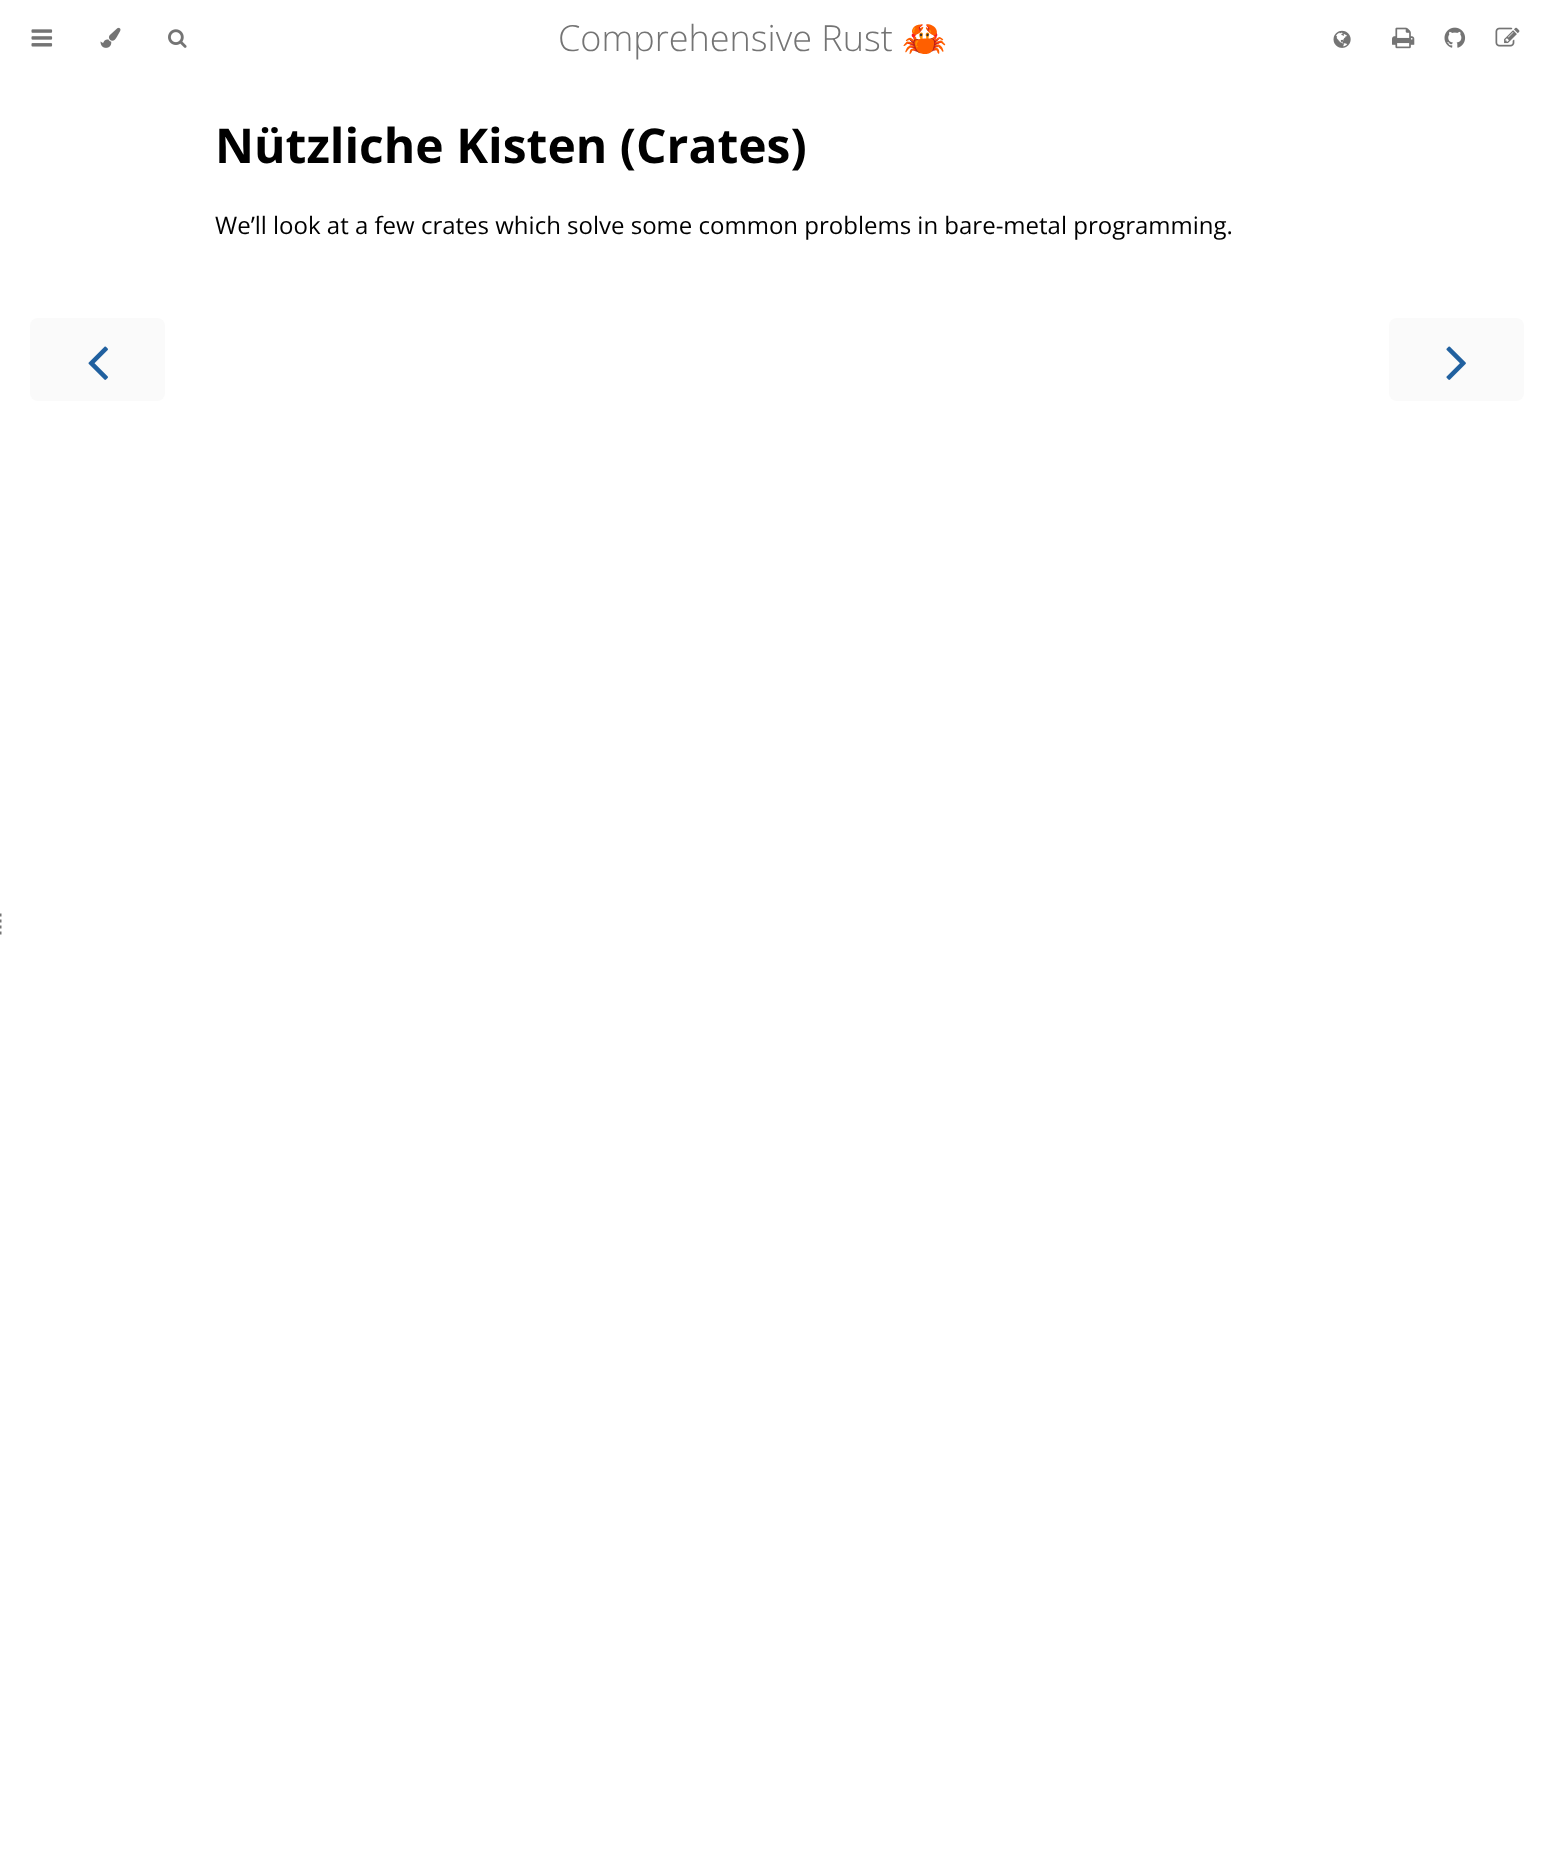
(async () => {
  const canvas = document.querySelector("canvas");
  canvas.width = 1553;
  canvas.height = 1849;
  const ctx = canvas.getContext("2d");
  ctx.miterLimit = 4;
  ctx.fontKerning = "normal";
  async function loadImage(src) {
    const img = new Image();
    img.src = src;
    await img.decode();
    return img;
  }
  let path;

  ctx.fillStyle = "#ffffff";
  ctx.fillRect(0, 0, 1553, 1849);
  ctx.drawImage(await loadImage("img/1.png"), 31, 29, 22, 18);
  ctx.drawImage(await loadImage("img/2.png"), 100, 27, 21, 21);
  ctx.drawImage(await loadImage("img/3.png"), 168, 29, 19, 19);
  ctx.drawImage(await loadImage("img/4.png"), 1333, 30, 18, 18);
  ctx.drawImage(await loadImage("img/5.png"), 1392, 27, 23, 22);
  ctx.drawImage(await loadImage("img/6.png"), 1444, 27, 22, 21);
  ctx.drawImage(await loadImage("img/7.png"), 1495, 27, 25, 20);
  ctx.fillStyle = "#fafafa";
  ctx.beginPath();
  ctx.roundRect(30, 318, 135, 83, 8);
  ctx.fill();
  ctx.drawImage(await loadImage("img/8.png"), 88, 346, 20, 34);
  ctx.beginPath();
  ctx.roundRect(1389, 318, 135, 83, 8);
  ctx.fill();
  ctx.drawImage(await loadImage("img/9.png"), 1446, 346, 20, 34);
  path = new Path2D("M0 913.5V937.5");
  ctx.strokeStyle = "#747474";
  ctx.lineWidth = 3;
  ctx.setLineDash([3, 3]);
  ctx.stroke(path);
  ctx.font = "300 36px Open Sans";
  ctx.fillStyle = "#747474";
  ctx.fillText("Comprehensive Rust", 558, 51);
  ctx.font = "36px Noto Color Emoji";
  ctx.fillText("🦀", 902, 51);
  ctx.font = "bold 48px Open Sans";
  ctx.fillStyle = "#000000";
  ctx.fillText("Nützliche Kisten (Crates)", 215, 163);
  ctx.font = "24px Open Sans";
  ctx.fillText("We’ll look at a few crates which solve some common problems in bare-metal programming.", 215, 234);
})();
